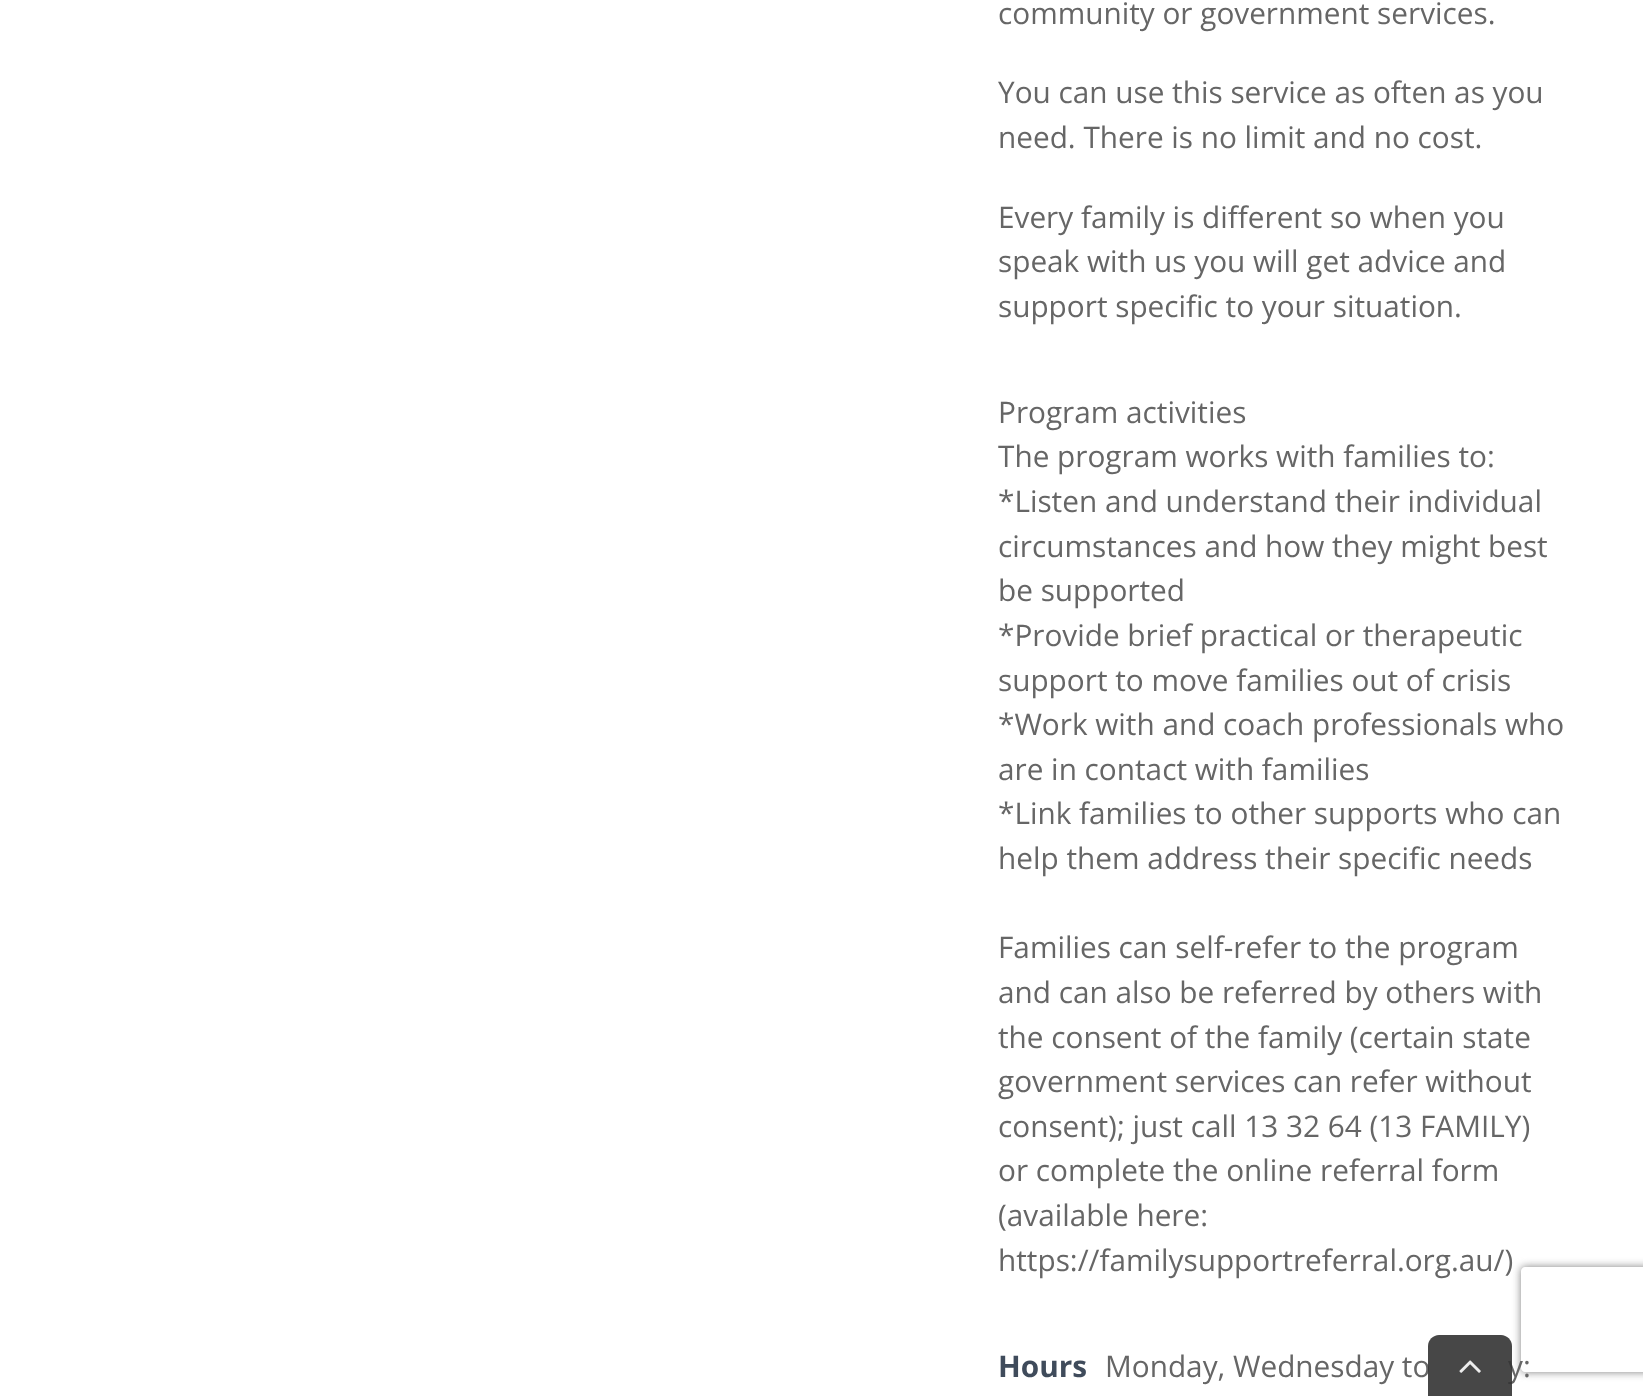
(async () => {
  const canvas = document.querySelector("canvas");
  canvas.width = 1643;
  canvas.height = 1396;
  const ctx = canvas.getContext("2d");
  ctx.miterLimit = 4;
  ctx.fontKerning = "normal";
  async function loadImage(src) {
    const img = new Image();
    img.src = src;
    await img.decode();
    return img;
  }
  let path;

  ctx.fillStyle = "#ffffff";
  ctx.fillRect(0, 0, 1643, 1396);
  ctx.save();
  path = new Path2D("M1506 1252H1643V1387H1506ZM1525 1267H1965C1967 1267 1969 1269 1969 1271V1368C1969 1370 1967 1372 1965 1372H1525C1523 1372 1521 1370 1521 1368V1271C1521 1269 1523 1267 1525 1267Z");
  ctx.clip(path, "evenodd");
  ctx.fillStyle = "#808080";
  ctx.filter = "blur(4.5px)";
  ctx.beginPath();
  ctx.roundRect(1521, 1267, 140, 105, 4);
  ctx.fill();
  ctx.filter = "none";
  ctx.restore();
  ctx.font = "29.75px Open Sans";
  ctx.fillStyle = "#666666";
  for (const [text, x, y] of [
    ["community or government services.", 998, 24],
    ["You can use this service as often as you", 998, 103],
    ["need. There is no limit and no cost.", 998, 148],
    ["Every family is different so when you", 998, 228],
    ["speak with us you will get advice and", 998, 272],
    ["support specific to your situation.", 998, 317],
    ["Program activities", 998, 423],
    ["The program works with families to:", 998, 467],
    ["*Listen and understand their individual", 998, 512],
    ["circumstances and how they might best", 998, 557],
    ["be supported", 998, 601],
    ["*Provide brief practical or therapeutic", 998, 646],
    ["support to move families out of crisis", 998, 691],
    ["*Work with and coach professionals who", 998, 735],
    ["are in contact with families", 998, 780],
    ["*Link families to other supports who can", 998, 824],
    ["help them address their specific needs", 998, 869],
    ["Families can self-refer to the program", 998, 958],
    ["and can also be referred by others with", 998, 1003],
    ["the consent of the family (certain state", 998, 1048],
    ["government services can refer without", 998, 1092],
    ["consent); just call 13 32 64 (13 FAMILY)", 998, 1137],
    ["or complete the online referral form", 998, 1181],
    ["(available here:", 998, 1226],
    ["https://familysupportreferral.org.au/)", 998, 1271],
  ]) {
    ctx.fillText(text, x, y);
  }
  ctx.font = "bold 29.75px Open Sans";
  ctx.fillStyle = "#3f4b5b";
  ctx.fillText("Hours", 998, 1377);
  ctx.font = "29.75px Open Sans";
  ctx.fillStyle = "#666666";
  ctx.fillText("Monday, Wednesday to", 1105, 1377);
  ctx.fillText("y:", 1508, 1377);
  ctx.fillStyle = "rgba(51, 51, 51, 0.9)";
  path = new Path2D("M1439 1335H1501C1507 1335 1512 1340 1512 1346V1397H1428V1346C1428 1340 1433 1335 1439 1335Z");
  ctx.fill(path);
  ctx.drawImage(await loadImage("img/1.png"), 1459, 1360, 22, 13);
})();
